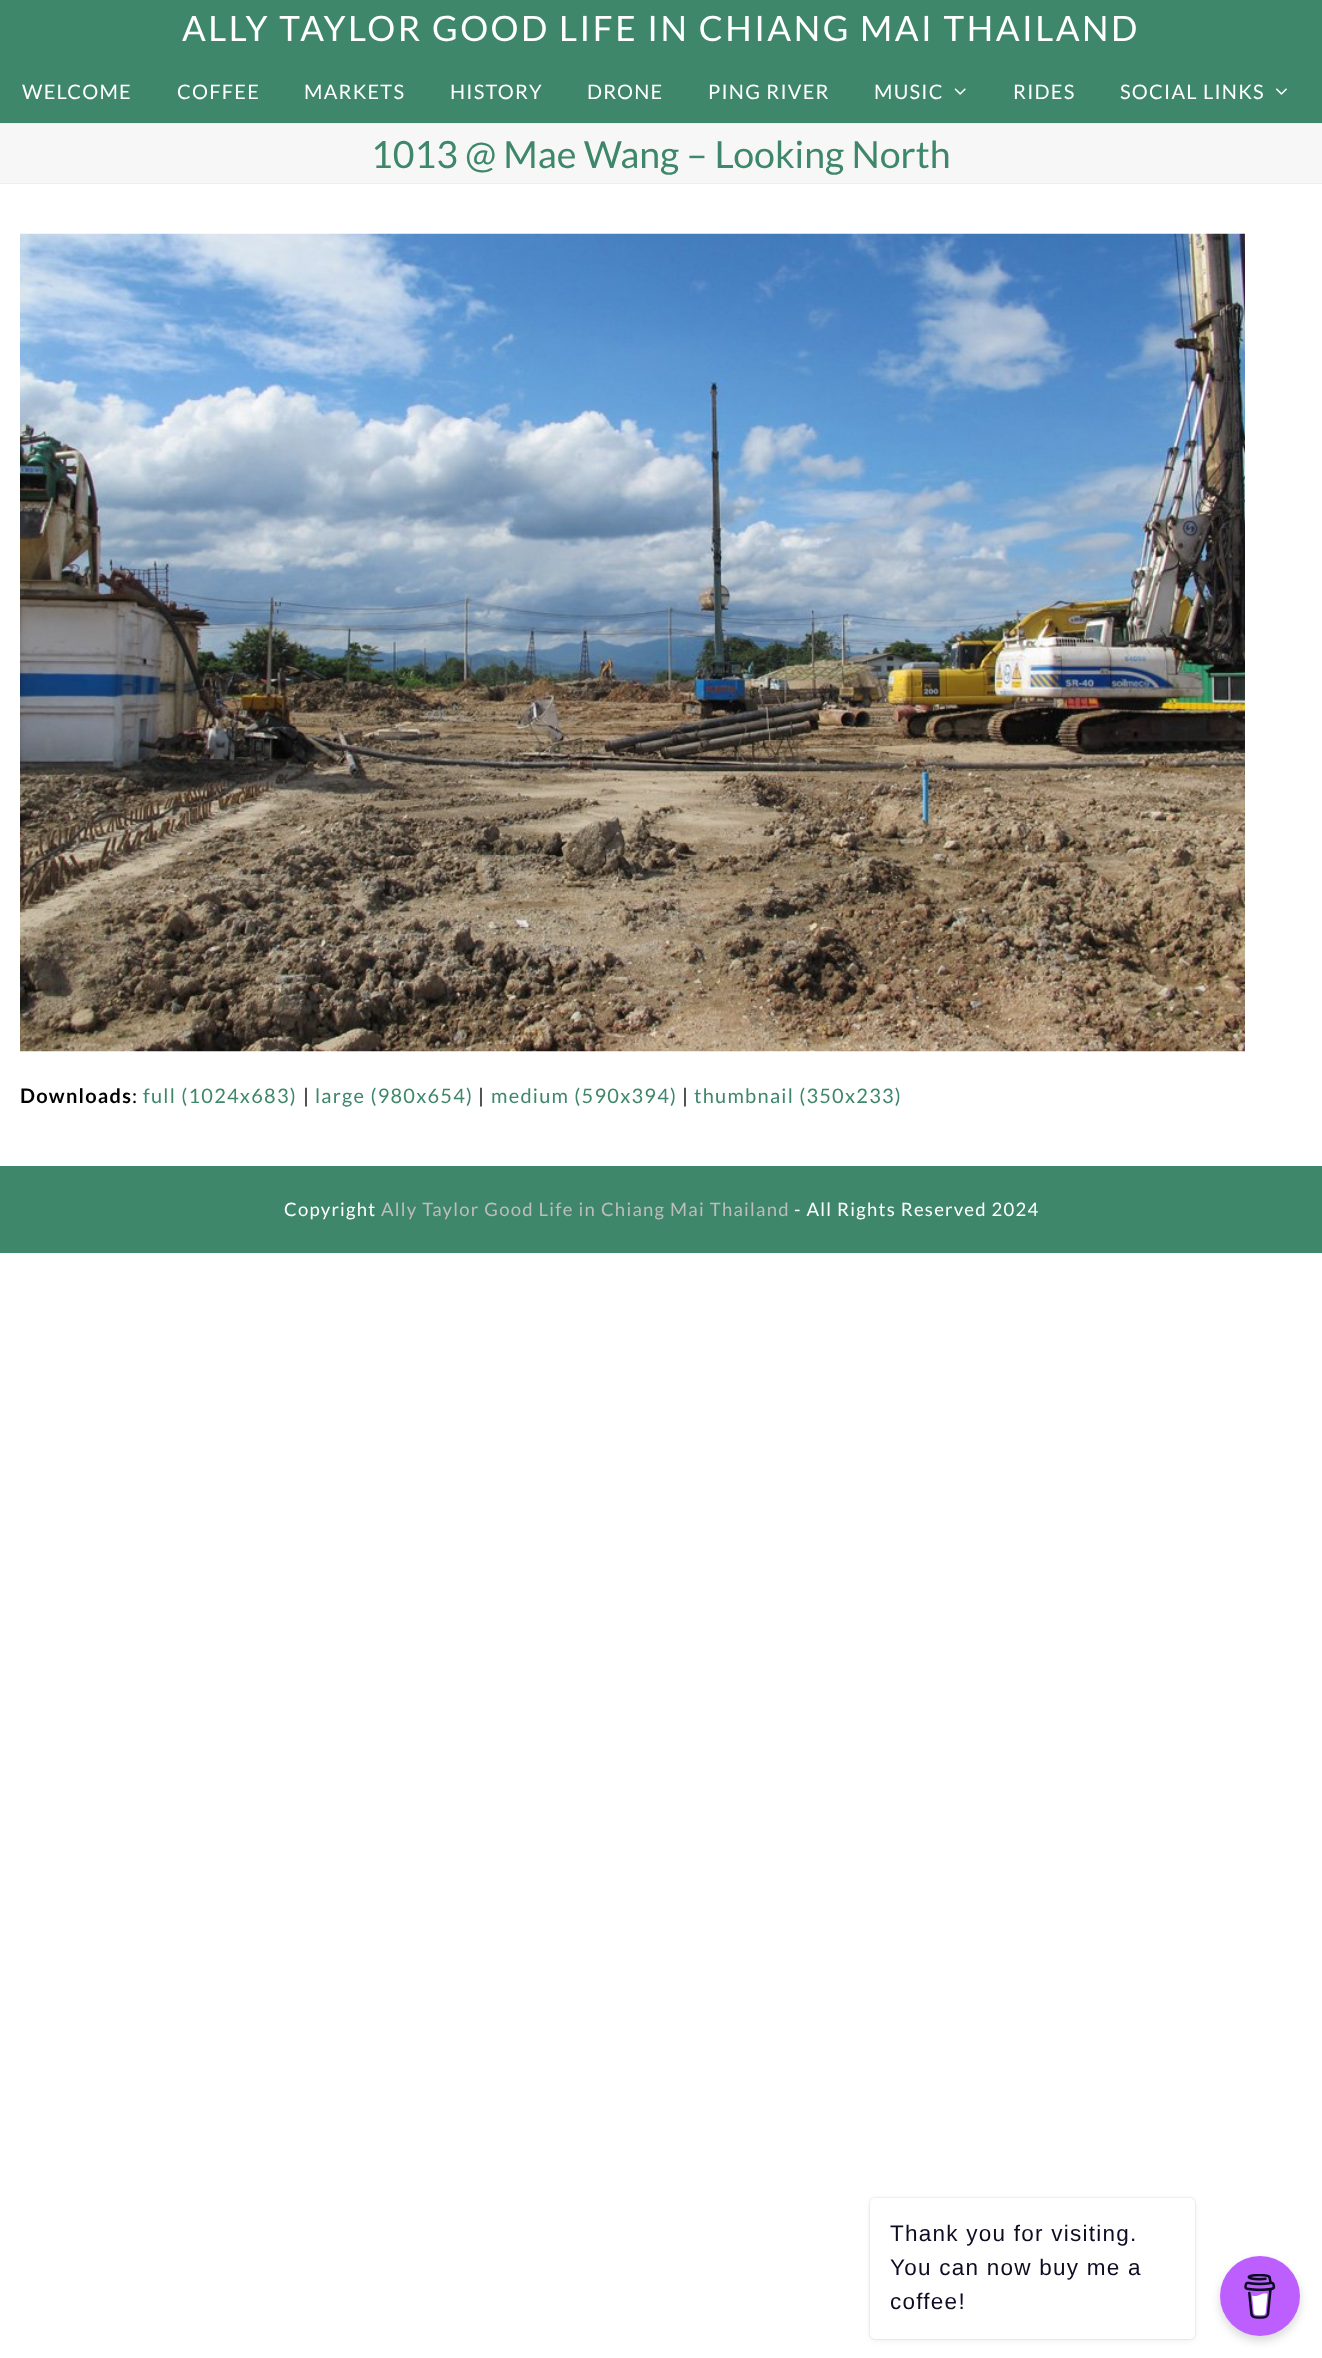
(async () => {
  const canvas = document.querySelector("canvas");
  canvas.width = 1322;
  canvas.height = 2358;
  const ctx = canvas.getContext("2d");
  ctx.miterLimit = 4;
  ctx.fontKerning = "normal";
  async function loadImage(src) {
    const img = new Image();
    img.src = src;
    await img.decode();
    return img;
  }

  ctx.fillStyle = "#ffffff";
  ctx.fillRect(0, 0, 1322, 2358);
  ctx.fillStyle = "#3e876b";
  ctx.fillRect(0, 0, 1322, 123);
  ctx.drawImage(await loadImage("img/1.png"), 954, 88, 12, 7);
  ctx.drawImage(await loadImage("img/2.png"), 1275, 88, 12, 7);
  for (const [x, y, w, h, color] of [
    [0, 124, 1322, 59, "#f7f7f7"],
    [0, 123, 1322, 1, "#eeeeee"],
    [0, 183, 1322, 1, "#eeeeee"],
  ]) {
    ctx.fillStyle = color;
    ctx.fillRect(x, y, w, h);
  }
  ctx.drawImage(await loadImage("img/3.png"), 20, 233, 1225, 819);
  ctx.fillStyle = "#3e876b";
  ctx.fillRect(0, 1166, 1322, 87);
  ctx.fillStyle = "rgba(0, 0, 0, 0.15)";
  ctx.filter = "blur(1px)";
  ctx.beginPath();
  ctx.roundRect(870, 2198, 325, 141, 5);
  ctx.fill();
  ctx.filter = "none";
  ctx.fillStyle = "rgba(0, 0, 0, 0.05)";
  ctx.filter = "blur(3px)";
  ctx.beginPath();
  ctx.roundRect(870, 2200, 325, 141, 5);
  ctx.fill();
  ctx.filter = "none";
  ctx.fillStyle = "#ffffff";
  ctx.beginPath();
  ctx.roundRect(870, 2198, 325, 141, 5);
  ctx.fill();
  ctx.fillStyle = "rgba(0, 0, 0, 0.15)";
  ctx.filter = "blur(5px)";
  ctx.beginPath();
  ctx.roundRect(1220, 2261, 80, 80, 40);
  ctx.fill();
  ctx.filter = "none";
  ctx.fillStyle = "#bd5fff";
  ctx.beginPath();
  ctx.arc(1260, 2296, 40, 0, Math.PI * 2);
  ctx.fill();
  ctx.drawImage(await loadImage("img/4.png"), 1244, 2274, 32, 45);
  ctx.letterSpacing = "2.5px";
  ctx.font = "35px Lato";
  ctx.fillStyle = "#ffffff";
  ctx.fillText("ALLY TAYLOR GOOD LIFE IN CHIANG MAI THAILAND", 182, 41);
  ctx.letterSpacing = "1.25px";
  ctx.font = "20px Lato";
  for (const [text, x, y] of [
    ["WELCOME", 22, 99],
    ["COFFEE", 177, 99],
    ["MARKETS", 304, 99],
    ["HISTORY", 450, 99],
    ["DRONE", 587, 99],
    ["PING RIVER", 708, 99],
    ["MUSIC", 874, 99],
    ["RIDES", 1013, 99],
    ["SOCIAL LINKS", 1120, 99],
  ]) {
    ctx.fillText(text, x, y);
  }
  ctx.letterSpacing = "0px";
  ctx.font = "37.5px Lato";
  ctx.fillStyle = "#3e876b";
  ctx.fillText("1013 @ Mae Wang – Looking North", 371, 168);
  ctx.letterSpacing = "1.25px";
  ctx.font = "bold 20px Lato";
  ctx.fillStyle = "#000000";
  ctx.fillText("Downloads", 20, 1103);
  ctx.font = "20px Lato";
  ctx.fillText(":", 132, 1103);
  ctx.fillStyle = "#3e876b";
  ctx.fillText("full (1024x683)", 143, 1103);
  ctx.fillStyle = "#000000";
  ctx.fillText("|", 303, 1103);
  ctx.fillStyle = "#3e876b";
  ctx.fillText("large (980x654)", 315, 1103);
  ctx.fillStyle = "#000000";
  ctx.fillText("|", 478, 1103);
  ctx.fillStyle = "#3e876b";
  ctx.fillText("medium (590x394)", 491, 1103);
  ctx.fillStyle = "#000000";
  ctx.fillText("|", 682, 1103);
  ctx.fillStyle = "#3e876b";
  ctx.fillText("thumbnail (350x233)", 694, 1103);
  ctx.font = "18.5px Lato";
  ctx.fillStyle = "#ffffff";
  ctx.fillText("Copyright", 284, 1216);
  ctx.fillStyle = "#bdbdbd";
  ctx.fillText("Ally Taylor Good Life in Chiang Mai Thailand", 381, 1216);
  ctx.fillStyle = "#ffffff";
  ctx.fillText("- All Rights Reserved 2024", 794, 1216);
  ctx.font = "22.5px Liberation Sans";
  ctx.fillStyle = "#0d0c22";
  for (const [text, x, y] of [
    ["Thank you for visiting.", 890, 2241],
    ["You can now buy me a", 890, 2275],
    ["coffee!", 890, 2309],
  ]) {
    ctx.fillText(text, x, y);
  }
})();
